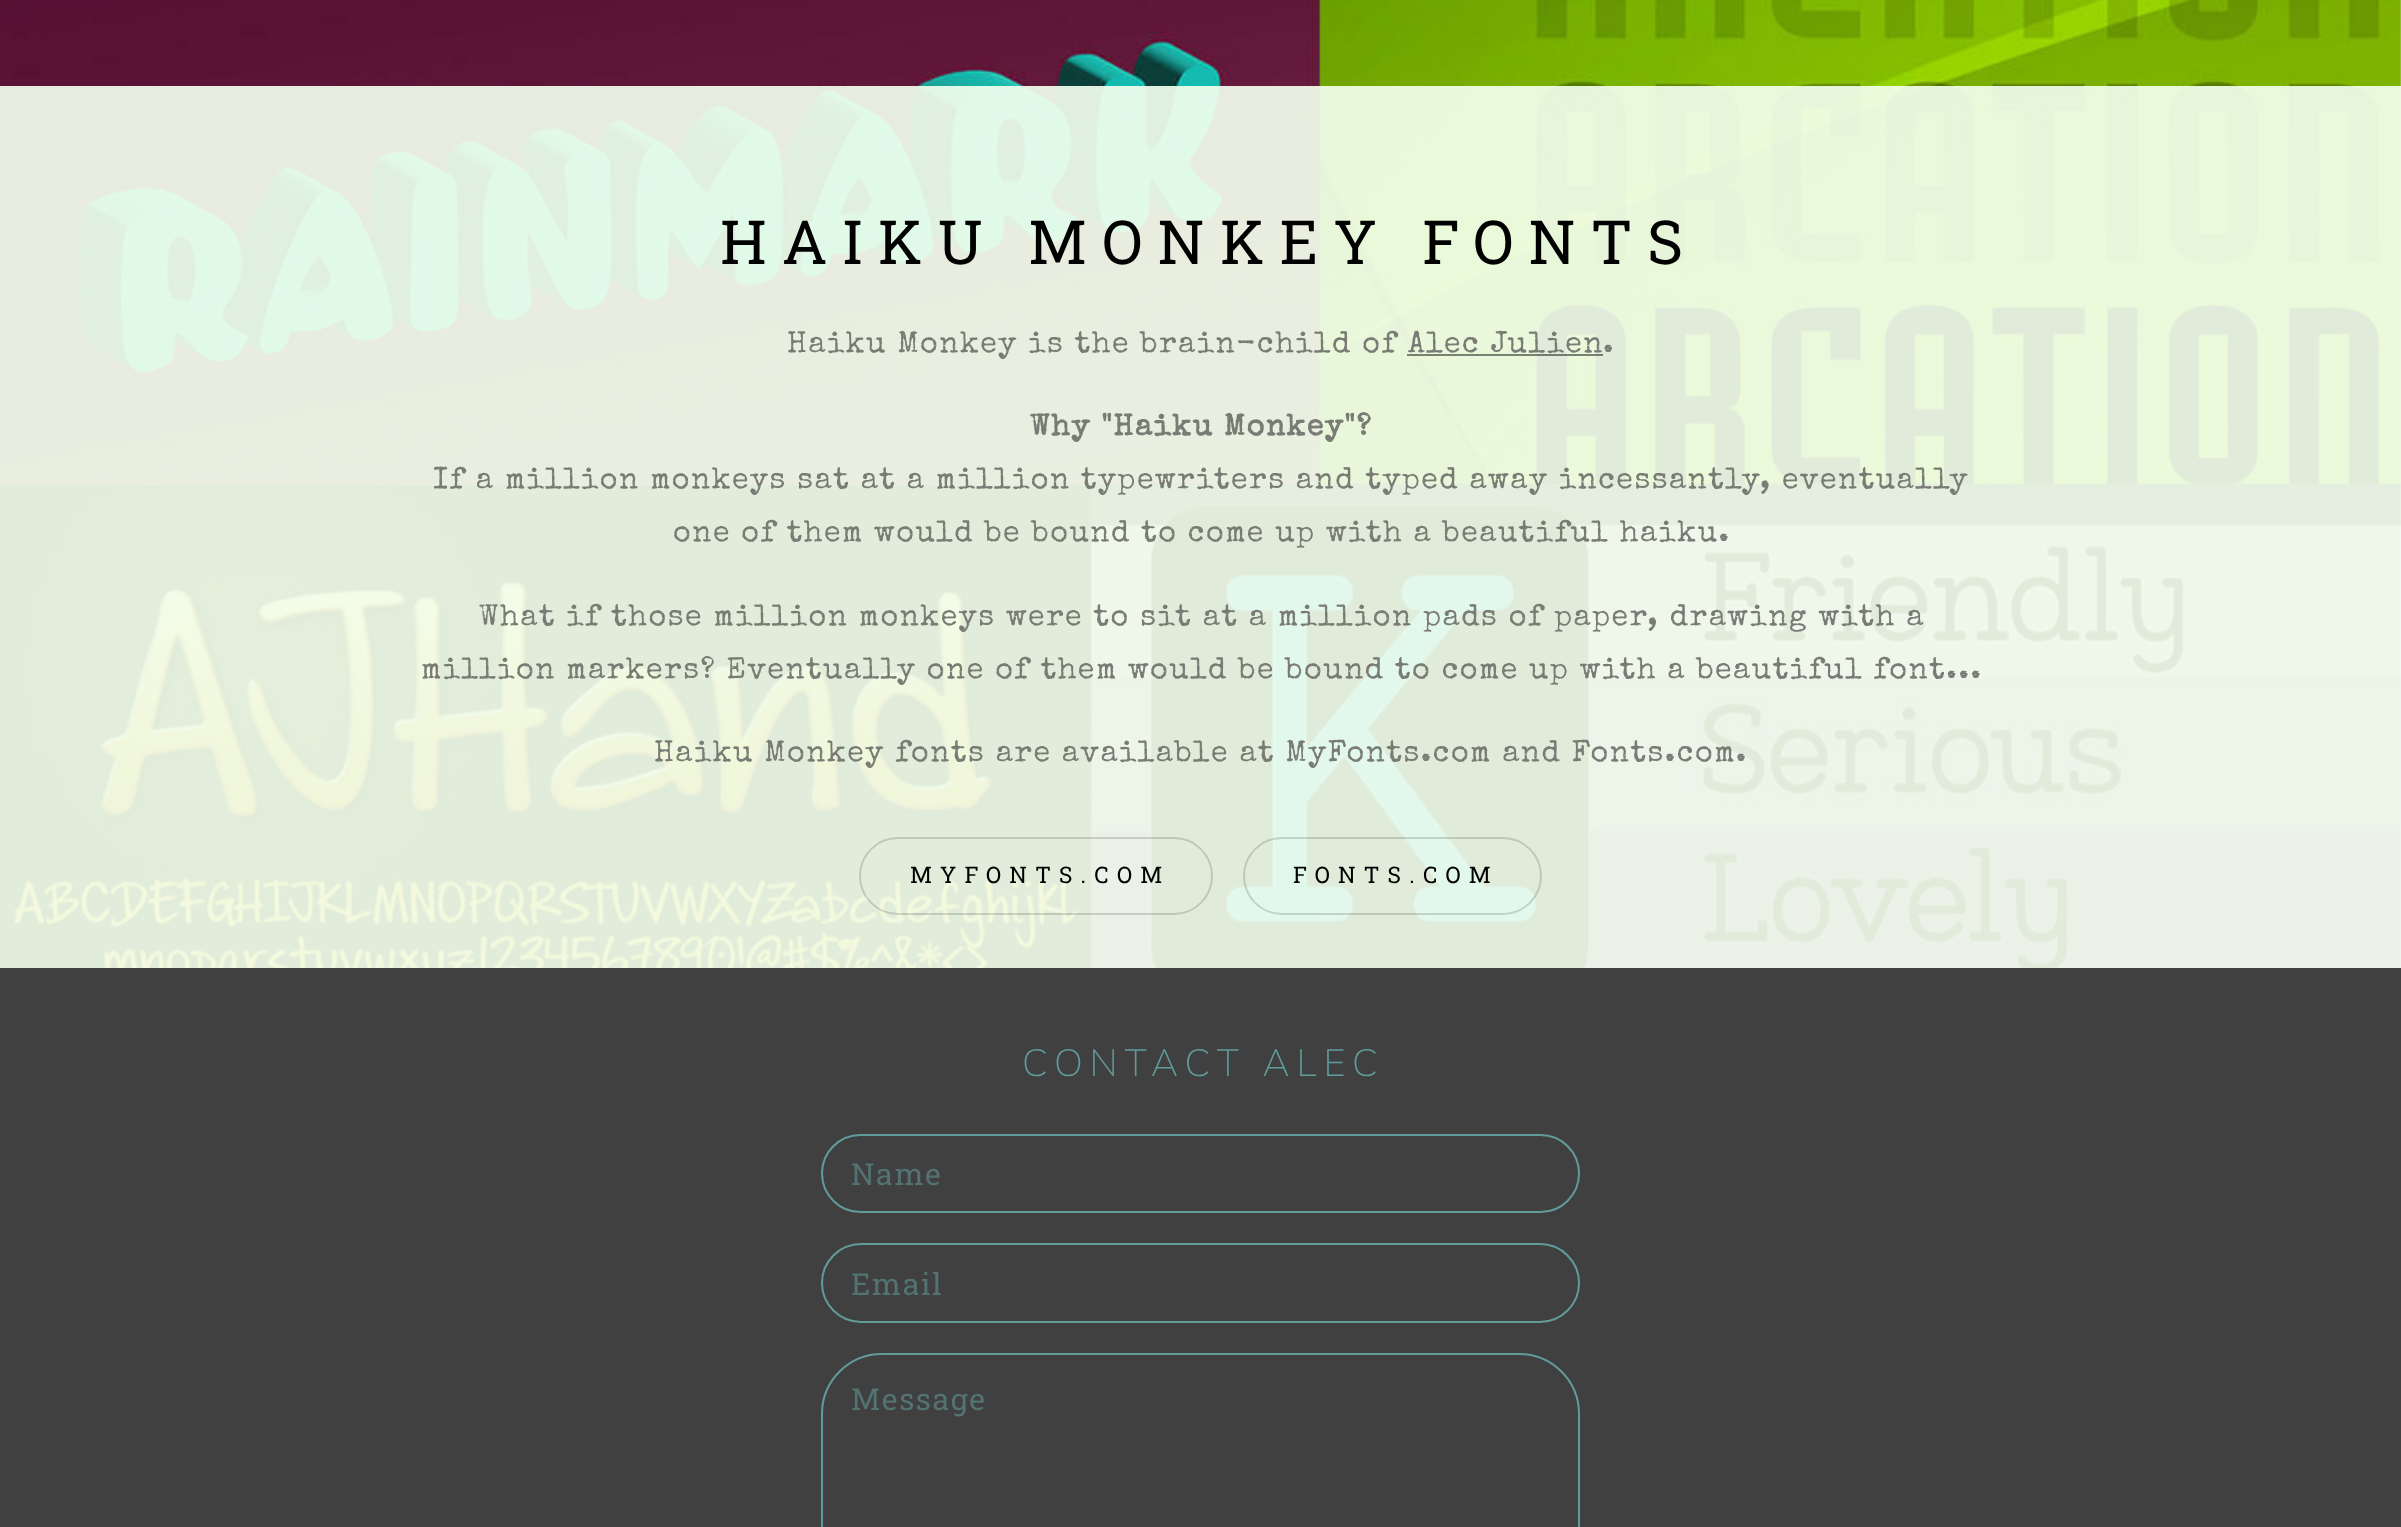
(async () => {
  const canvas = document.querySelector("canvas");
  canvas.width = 2401;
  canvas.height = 1527;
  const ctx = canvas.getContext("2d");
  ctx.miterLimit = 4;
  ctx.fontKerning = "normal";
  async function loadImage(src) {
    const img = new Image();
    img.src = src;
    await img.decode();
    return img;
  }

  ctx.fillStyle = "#ffffff";
  ctx.fillRect(0, 0, 2401, 1527);
  ctx.drawImage(await loadImage("img/1.png"), 0, 0, 2401, 968);
  ctx.fillStyle = "rgba(0, 0, 0, 0.48)";
  ctx.fillRect(1407, 354, 196, 2);
  ctx.beginPath();
  ctx.roundRect(860, 838, 352, 76, 38);
  ctx.strokeStyle = "rgba(0, 0, 0, 0.15)";
  ctx.lineWidth = 2;
  ctx.stroke();
  ctx.beginPath();
  ctx.roundRect(1244, 838, 297, 76, 38);
  ctx.stroke();
  ctx.fillStyle = "#404040";
  ctx.fillRect(0, 968, 2401, 559);
  ctx.beginPath();
  ctx.roundRect(822, 1135, 757, 77, 38.5);
  ctx.strokeStyle = "#619c9c";
  ctx.stroke();
  ctx.beginPath();
  ctx.roundRect(822, 1244, 757, 78, 39);
  ctx.stroke();
  ctx.beginPath();
  ctx.roundRect(822, 1354, 757, 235, 60);
  ctx.stroke();
  ctx.letterSpacing = "15.2px";
  ctx.font = "60.7px Roboto Slab";
  ctx.fillStyle = "#000000";
  ctx.fillText("HAIKU MONKEY FONTS", 720, 264);
  ctx.letterSpacing = "1.52px";
  ctx.font = "30.33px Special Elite";
  ctx.fillStyle = "#797c74";
  for (const [text, x, y] of [
    ["Haiku Monkey is the brain-child of", 787, 352],
    ["Alec Julien", 1408, 352],
    [".", 1603, 352],
  ]) {
    ctx.fillText(text, x, y);
  }
  ctx.font = "bold 30.33px Special Elite";
  ctx.fillText("Why \"Haiku Monkey\"?", 1030, 435);
  ctx.font = "30.33px Special Elite";
  for (const [text, x, y] of [
    ["If a million monkeys sat at a million typewriters and typed away incessantly, eventually", 433, 488],
    ["one of them would be bound to come up with a beautiful haiku.", 673, 541],
    ["What if those million monkeys were to sit at a million pads of paper, drawing with a", 479, 625],
    ["million markers? Eventually one of them would be bound to come up with a beautiful font...", 421, 678],
    ["Haiku Monkey fonts are available at MyFonts.com and Fonts.com.", 654, 761],
  ]) {
    ctx.fillText(text, x, y);
  }
  ctx.letterSpacing = "8.25px";
  ctx.font = "22.75px Roboto Slab";
  ctx.fillStyle = "#000000";
  ctx.fillText("MYFONTS.COM", 910, 883);
  ctx.fillText("FONTS.COM", 1293, 883);
  ctx.letterSpacing = "6.75px";
  ctx.font = "200 38px Mulish";
  ctx.fillStyle = "#619c9c";
  ctx.fillText("CONTACT ALEC", 1022, 1076);
  ctx.letterSpacing = "1.52px";
  ctx.font = "30.33px Roboto Slab";
  ctx.fillStyle = "#537272";
  for (const [text, x, y] of [
    ["Name", 851, 1185],
    ["Email", 851, 1295],
    ["Message", 851, 1410],
  ]) {
    ctx.fillText(text, x, y);
  }
})();
